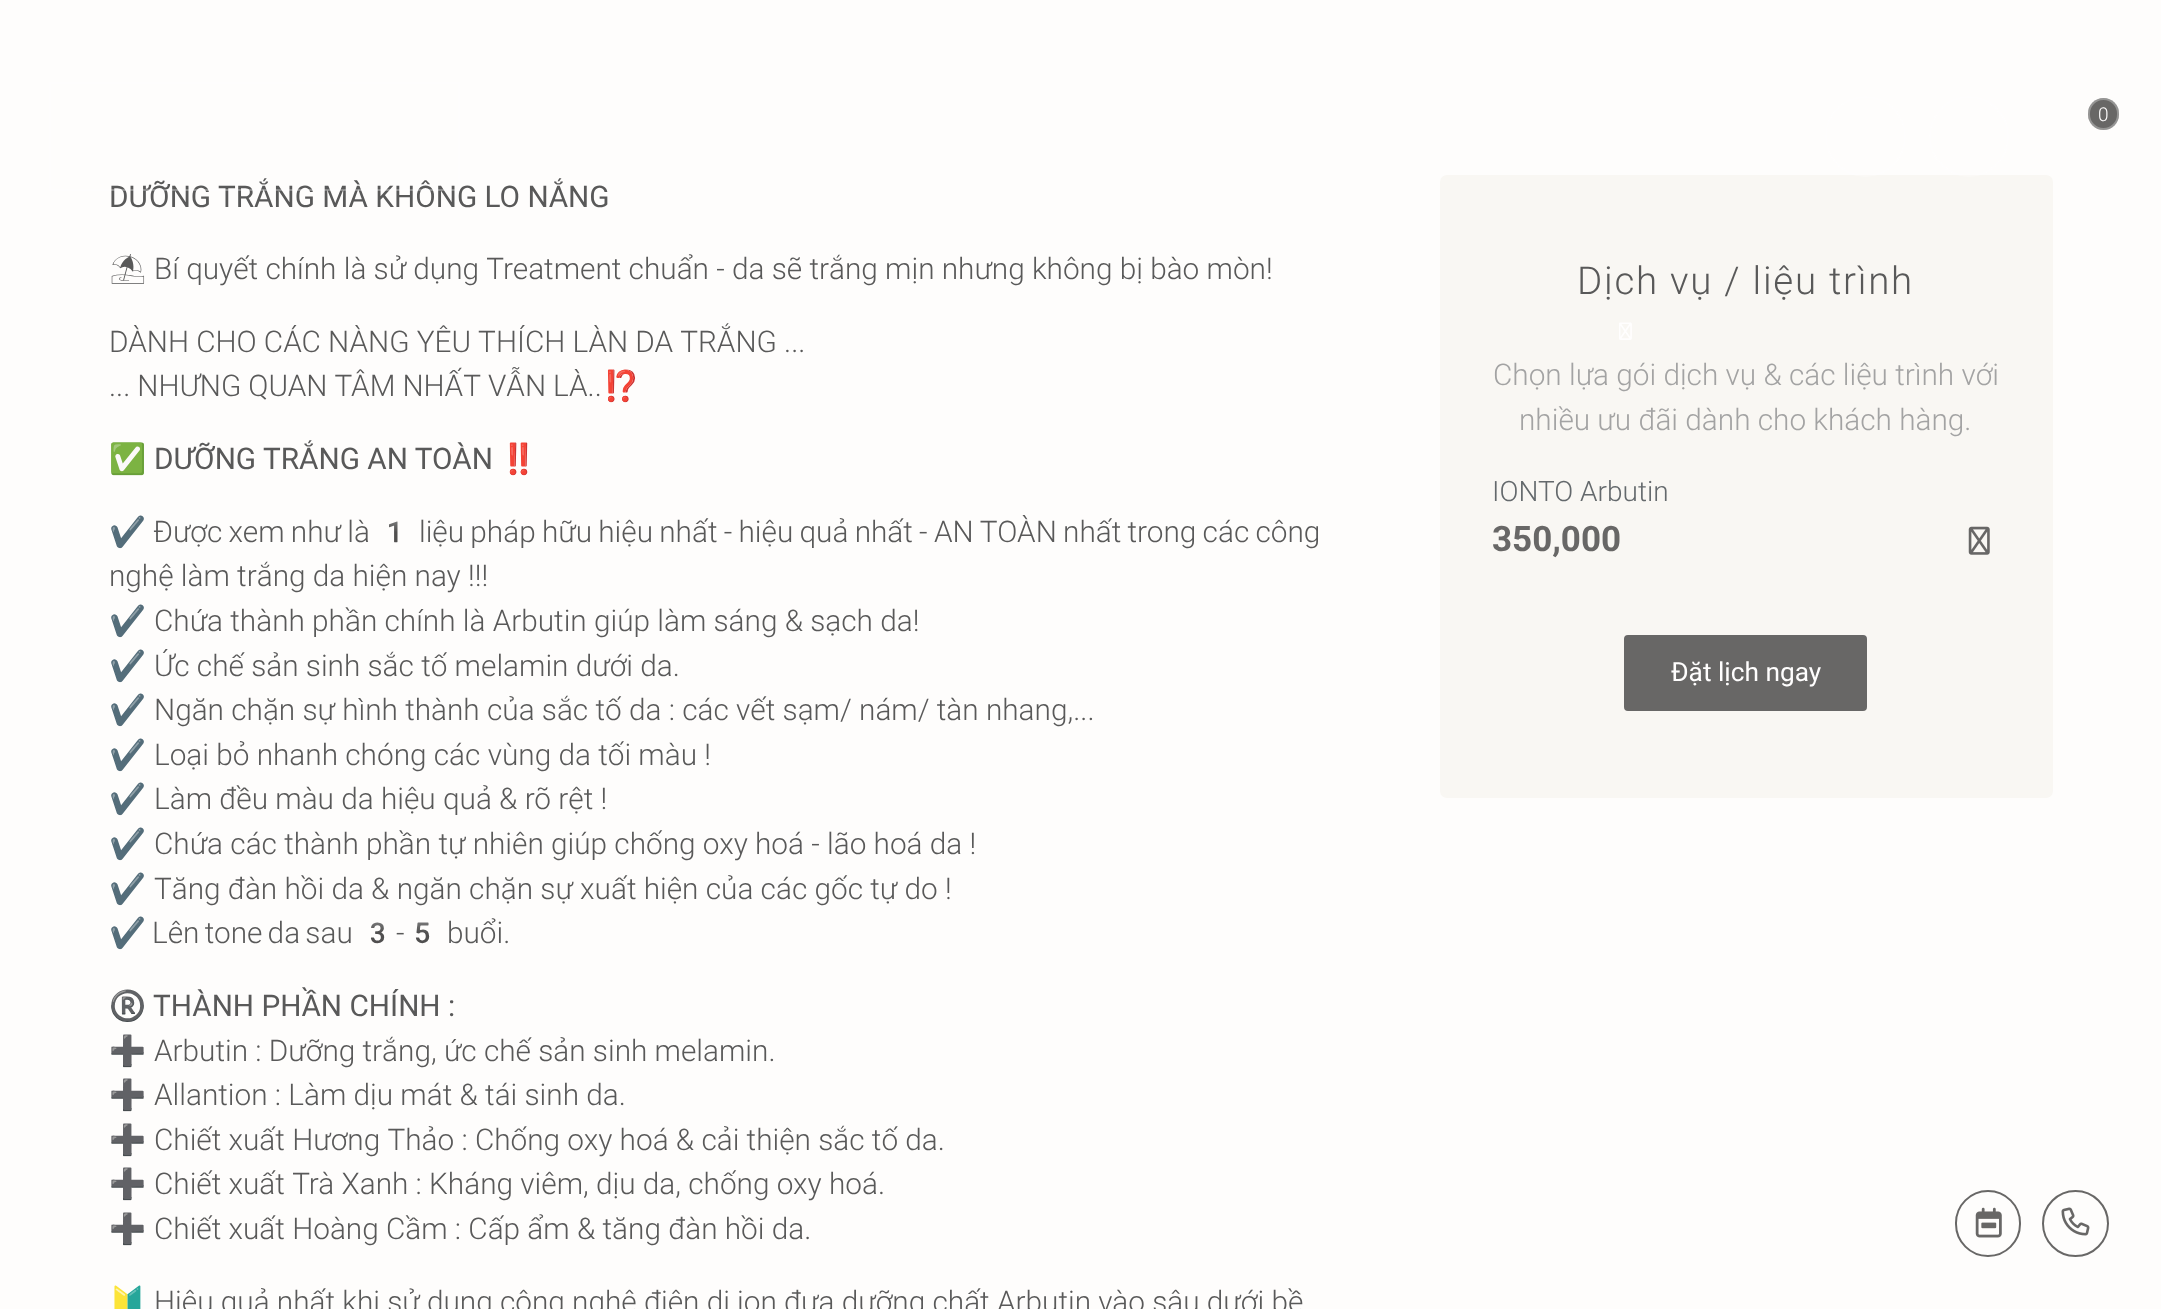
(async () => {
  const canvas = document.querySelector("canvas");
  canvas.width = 2161;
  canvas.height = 1309;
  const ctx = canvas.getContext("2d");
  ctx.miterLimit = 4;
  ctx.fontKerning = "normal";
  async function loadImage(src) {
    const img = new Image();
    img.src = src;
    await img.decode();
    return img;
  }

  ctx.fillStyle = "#fefdfc";
  ctx.fillRect(0, 0, 2161, 1309);
  ctx.fillStyle = "#f9f7f3";
  ctx.beginPath();
  ctx.roundRect(1440, 175, 613, 623, 7);
  ctx.fill();
  ctx.beginPath();
  ctx.arc(1865.5, 136.5, 39.5, 0, Math.PI * 2);
  ctx.strokeStyle = "rgba(255, 254, 254, 0.3)";
  ctx.lineWidth = 2;
  ctx.stroke();
  ctx.beginPath();
  ctx.roundRect(1930, 97, 78, 79, 39);
  ctx.stroke();
  ctx.fillStyle = "#686766";
  ctx.beginPath();
  ctx.roundRect(2088, 98, 31, 32, 15.5);
  ctx.fill();
  ctx.beginPath();
  ctx.roundRect(2089, 99, 29, 30, 14.5);
  ctx.stroke();
  ctx.drawImage(await loadImage("img/1.png"), 1619, 322, 13, 18);
  ctx.drawImage(await loadImage("img/2.png"), 1968, 526, 22, 29);
  ctx.beginPath();
  ctx.roundRect(1625, 636, 241, 74, 3);
  ctx.fill();
  ctx.strokeStyle = "#686766";
  ctx.stroke();
  ctx.beginPath();
  ctx.roundRect(1956, 1191, 64, 65, 32);
  ctx.stroke();
  ctx.drawImage(await loadImage("img/3.png"), 1975, 1207, 27, 31);
  ctx.beginPath();
  ctx.arc(2075.5, 1223.5, 32.5, 0, Math.PI * 2);
  ctx.stroke();
  ctx.drawImage(await loadImage("img/4.png"), 2061, 1207, 29, 29);
  ctx.font = "300 19px Roboto";
  ctx.fillStyle = "#fffefe";
  ctx.fillText("0", 2098, 121);
  ctx.font = "29.75px Roboto";
  ctx.fillStyle = "#595959";
  ctx.fillText("DƯỠNG TRẮNG MÀ KHÔNG LO NẮNG", 109, 207);
  ctx.strokeStyle = "rgba(255, 254, 254, 0.3)";
  ctx.strokeRect(50, 83, 409, 107);
  ctx.font = "300 29.75px Noto Emoji";
  ctx.fillText("⛱", 109, 279);
  ctx.font = "300 29.75px Roboto";
  ctx.fillText("Bí quyết chính là sử dụng Treatment chuẩn - da sẽ trắng mịn nhưng không bị bào mòn!", 154, 279);
  ctx.wordSpacing = "-0.1px";
  ctx.fillText("DÀNH CHO CÁC NÀNG YÊU THÍCH LÀN DA TRẮNG ...", 109, 352);
  ctx.wordSpacing = "-0.25px";
  ctx.fillText("... NHƯNG QUAN TÂM NHẤT VẪN LÀ..", 109, 396);
  ctx.wordSpacing = "0px";
  ctx.font = "29.75px Noto Color Emoji";
  ctx.fillText("⁉️", 603, 396);
  ctx.fillText("✅", 109, 469);
  ctx.font = "29.75px Roboto";
  ctx.fillText("DƯỠNG TRẮNG AN TOÀN", 154, 469);
  ctx.font = "29.75px Noto Color Emoji";
  ctx.fillText("‼️", 500, 469);
  ctx.fillText("✔️", 109, 542);
  ctx.wordSpacing = "-1px";
  ctx.font = "300 29.75px Roboto";
  ctx.fillText("Được xem như là", 153, 542);
  ctx.wordSpacing = "0px";
  ctx.font = "29.75px Noto Color Emoji";
  ctx.fillText("1", 376, 542);
  ctx.wordSpacing = "-1px";
  ctx.font = "300 29.75px Roboto";
  ctx.fillText("liệu pháp hữu hiệu nhất - hiệu quả nhất - AN TOÀN nhất trong các công", 419, 542);
  ctx.wordSpacing = "0px";
  ctx.fillText("nghệ làm trắng da hiện nay !!!", 109, 586);
  ctx.font = "29.75px Noto Color Emoji";
  ctx.fillText("✔️", 109, 631);
  ctx.font = "300 29.75px Roboto";
  ctx.fillText("Chứa thành phần chính là Arbutin giúp làm sáng & sạch da!", 154, 631);
  ctx.font = "29.75px Noto Color Emoji";
  ctx.fillText("✔️", 109, 676);
  ctx.font = "300 29.75px Roboto";
  ctx.fillText("Ức chế sản sinh sắc tố melamin dưới da.", 154, 676);
  ctx.font = "29.75px Noto Color Emoji";
  ctx.fillText("✔️", 109, 720);
  ctx.font = "300 29.75px Roboto";
  ctx.fillText("Ngăn chặn sự hình thành của sắc tố da : các vết sạm/ nám/ tàn nhang,...", 154, 720);
  ctx.font = "29.75px Noto Color Emoji";
  ctx.fillText("✔️", 109, 765);
  ctx.font = "300 29.75px Roboto";
  ctx.fillText("Loại bỏ nhanh chóng các vùng da tối màu !", 154, 765);
  ctx.font = "29.75px Noto Color Emoji";
  ctx.fillText("✔️", 109, 809);
  ctx.font = "300 29.75px Roboto";
  ctx.fillText("Làm đều màu da hiệu quả & rõ rệt !", 154, 809);
  ctx.font = "29.75px Noto Color Emoji";
  ctx.fillText("✔️", 109, 854);
  ctx.font = "300 29.75px Roboto";
  ctx.fillText("Chứa các thành phần tự nhiên giúp chống oxy hoá - lão hoá da !", 154, 854);
  ctx.font = "29.75px Noto Color Emoji";
  ctx.fillText("✔️", 109, 899);
  ctx.font = "300 29.75px Roboto";
  ctx.fillText("Tăng đàn hồi da & ngăn chặn sự xuất hiện của các gốc tự do !", 154, 899);
  ctx.font = "29.75px Noto Color Emoji";
  ctx.fillText("✔️", 109, 943);
  ctx.wordSpacing = "-2px";
  ctx.font = "300 29.75px Roboto";
  ctx.fillText("Lên tone da sau", 152, 943);
  ctx.wordSpacing = "0px";
  ctx.font = "29.75px Noto Color Emoji";
  ctx.fillText("3", 359, 943);
  ctx.font = "300 29.75px Roboto";
  ctx.fillText("-", 396, 943);
  ctx.font = "29.75px Noto Color Emoji";
  ctx.fillText("5", 404, 943);
  ctx.font = "300 29.75px Roboto";
  ctx.fillText("buổi.", 447, 943);
  ctx.font = "29.75px Noto Color Emoji";
  ctx.fillText("®️", 109, 1016);
  ctx.font = "29.75px Roboto";
  ctx.fillText("THÀNH PHẦN CHÍNH :", 153, 1016);
  ctx.font = "29.75px Noto Color Emoji";
  ctx.fillText("➕", 109, 1061);
  ctx.font = "300 29.75px Roboto";
  ctx.fillText("Arbutin : Dưỡng trắng, ức chế sản sinh melamin.", 154, 1061);
  ctx.font = "29.75px Noto Color Emoji";
  ctx.fillText("➕", 109, 1105);
  ctx.font = "300 29.75px Roboto";
  ctx.fillText("Allantion : Làm dịu mát & tái sinh da.", 154, 1105);
  ctx.font = "29.75px Noto Color Emoji";
  ctx.fillText("➕", 109, 1150);
  ctx.font = "300 29.75px Roboto";
  ctx.fillText("Chiết xuất Hương Thảo : Chống oxy hoá & cải thiện sắc tố da.", 154, 1150);
  ctx.font = "29.75px Noto Color Emoji";
  ctx.fillText("➕", 109, 1194);
  ctx.font = "300 29.75px Roboto";
  ctx.fillText("Chiết xuất Trà Xanh : Kháng viêm, dịu da, chống oxy hoá.", 154, 1194);
  ctx.font = "29.75px Noto Color Emoji";
  ctx.fillText("➕", 109, 1239);
  ctx.font = "300 29.75px Roboto";
  ctx.fillText("Chiết xuất Hoàng Cầm : Cấp ẩm & tăng đàn hồi da.", 154, 1239);
  ctx.font = "29.75px Noto Color Emoji";
  ctx.fillText("🔰", 109, 1312);
  ctx.font = "300 29.75px Roboto";
  ctx.fillText("Hiệu quả nhất khi sử dụng công nghệ điện di ion đưa dưỡng chất Arbutin vào sâu dưới bề", 154, 1312);
  ctx.letterSpacing = "1.75px";
  ctx.font = "300 38.5px Roboto";
  ctx.fillText("Dịch vụ / liệu trình", 1577, 294);
  ctx.letterSpacing = "0px";
  ctx.font = "300 29.75px Roboto";
  ctx.fillStyle = "#a3a3a3";
  ctx.fillText("Chọn lựa gói dịch vụ & các liệu trình với", 1493, 385);
  ctx.fillText("nhiều ưu đãi dành cho khách hàng.", 1519, 430);
  ctx.font = "300 28px Roboto";
  ctx.fillStyle = "#64696c";
  ctx.fillText("IONTO Arbutin", 1492, 501);
  ctx.font = "bold 35px Roboto";
  ctx.fillStyle = "#686766";
  ctx.fillText("350,000", 1492, 551);
  ctx.font = "26.25px Roboto";
  ctx.fillStyle = "#fffefe";
  ctx.fillText("Đặt lịch ngay", 1671, 681);
})();
